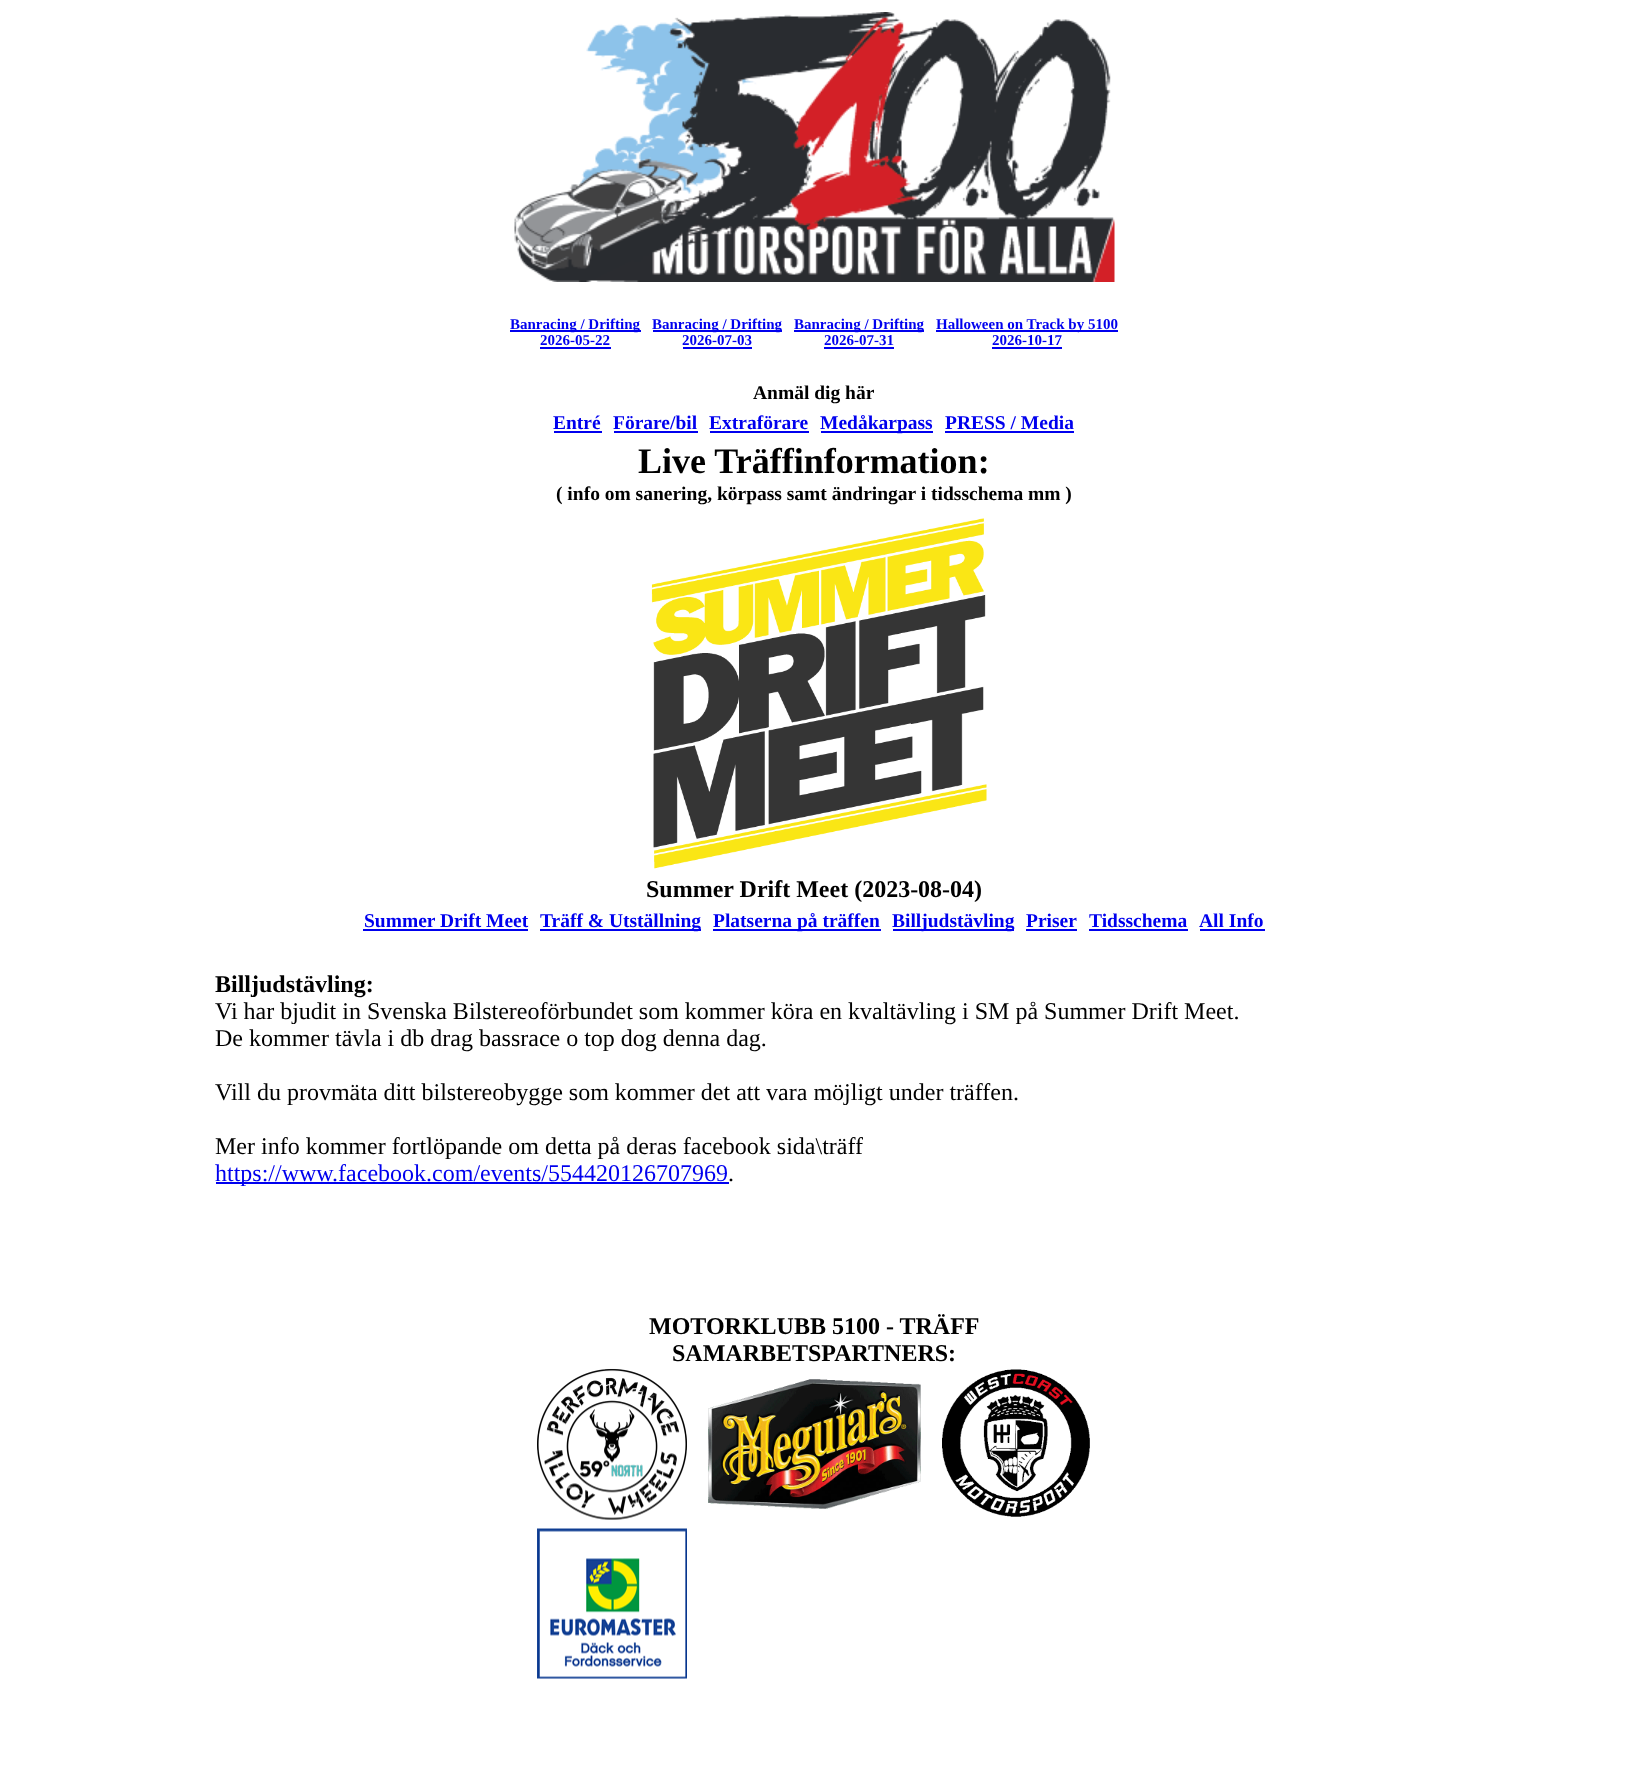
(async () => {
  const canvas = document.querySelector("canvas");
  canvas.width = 1627;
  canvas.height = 1771;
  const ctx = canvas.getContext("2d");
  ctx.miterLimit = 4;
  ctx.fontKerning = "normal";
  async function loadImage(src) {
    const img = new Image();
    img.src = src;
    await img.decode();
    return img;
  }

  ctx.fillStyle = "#ffffff";
  ctx.fillRect(0, 0, 1627, 1771);
  ctx.drawImage(await loadImage("img/1.png"), 514, 12, 601, 270);
  for (const [x, y, w, h, color] of [
    [510, 330, 131, 2, "#0000ee"],
    [540, 347, 71, 2, "#0000ee"],
    [653, 330, 129, 2, "#0000ee"],
    [683, 347, 69, 2, "#0000ee"],
    [794, 330, 130, 2, "#0000ee"],
    [824, 347, 70, 2, "#0000ee"],
    [936, 330, 182, 2, "#0000ee"],
    [992, 347, 70, 2, "#0000ee"],
    [554, 431, 48, 2, "#0000ee"],
    [614, 431, 84, 2, "#0000ee"],
    [710, 431, 99, 2, "#0000ee"],
    [821, 431, 112, 2, "#0000ee"],
    [945, 431, 129, 2, "#0000ee"],
  ]) {
    ctx.fillStyle = color;
    ctx.fillRect(x, y, w, h);
  }
  ctx.drawImage(await loadImage("img/2.png"), 651, 518, 336, 351);
  for (const [x, y, w, h, color] of [
    [363, 929, 165, 2, "#0000ee"],
    [540, 929, 161, 2, "#0000ee"],
    [713, 929, 168, 2, "#0000ee"],
    [893, 929, 121, 2, "#0000ee"],
    [1026, 929, 51, 2, "#0000ee"],
    [1089, 929, 99, 2, "#0000ee"],
    [1200, 929, 65, 2, "#0000ee"],
    [216, 1182, 513, 2, "#0000ee"],
  ]) {
    ctx.fillStyle = color;
    ctx.fillRect(x, y, w, h);
  }
  ctx.drawImage(await loadImage("img/3.png"), 537, 1368, 150, 152);
  ctx.drawImage(await loadImage("img/4.png"), 708, 1379, 213, 130);
  ctx.drawImage(await loadImage("img/5.png"), 942, 1369, 148, 148);
  ctx.drawImage(await loadImage("img/6.png"), 537, 1528, 150, 151);
  ctx.font = "bold 15px Liberation Serif";
  for (const [text, x, y] of [
    ["Banracing / Drifting", 510, 329],
    ["2026-05-22", 540, 345],
    ["Banracing / Drifting", 652, 329],
    ["2026-07-03", 682, 345],
    ["Banracing / Drifting", 794, 329],
    ["2026-07-31", 824, 345],
    ["Halloween on Track by 5100", 936, 329],
    ["2026-10-17", 992, 345],
  ]) {
    ctx.fillText(text, x, y);
  }
  ctx.font = "bold 19.5px Liberation Serif";
  ctx.fillStyle = "#000000";
  ctx.fillText("Anmäl dig här", 753, 399);
  ctx.fillStyle = "#0000ee";
  for (const [text, x, y] of [
    ["Entré", 553, 429],
    ["Förare/bil", 613, 429],
    ["Extraförare", 709, 429],
    ["Medåkarpass", 820, 429],
    ["PRESS / Media", 945, 429],
  ]) {
    ctx.fillText(text, x, y);
  }
  ctx.font = "bold 36px Liberation Serif";
  ctx.fillStyle = "#000000";
  ctx.fillText("Live Träffinformation:", 638, 473);
  ctx.font = "bold 19.5px Liberation Serif";
  ctx.fillText("( info om sanering, körpass samt ändringar i tidsschema mm )", 556, 500);
  ctx.font = "bold 24px Liberation Serif";
  ctx.fillText("Summer Drift Meet (2023-08-04)", 646, 897);
  ctx.font = "bold 19.5px Liberation Serif";
  ctx.fillStyle = "#0000ee";
  for (const [text, x, y] of [
    ["Summer Drift Meet", 364, 927],
    ["Träff & Utställning", 540, 927],
    ["Platserna på träffen", 713, 927],
    ["Billjudstävling", 892, 927],
    ["Priser", 1026, 927],
    ["Tidsschema", 1089, 927],
    ["All Info", 1199, 927],
  ]) {
    ctx.fillText(text, x, y);
  }
  ctx.font = "bold 24px Liberation Serif";
  ctx.fillStyle = "#000000";
  ctx.fillText("Billjudstävling:", 215, 992);
  ctx.font = "24px Liberation Serif";
  for (const [text, x, y] of [
    ["Vi har bjudit in Svenska Bilstereoförbundet som kommer köra en kvaltävling i SM på Summer Drift Meet.", 215, 1019],
    ["De kommer tävla i db drag bassrace o top dog denna dag.", 215, 1046],
    ["Vill du provmäta ditt bilstereobygge som kommer det att vara möjligt under träffen.", 215, 1100],
    ["Mer info kommer fortlöpande om detta på deras facebook sida\\träff", 215, 1154],
  ]) {
    ctx.fillText(text, x, y);
  }
  ctx.fillStyle = "#0000ee";
  ctx.fillText("https://www.facebook.com/events/554420126707969", 215, 1181);
  ctx.fillStyle = "#000000";
  ctx.fillText(".", 728, 1181);
  ctx.font = "bold 24px Liberation Serif";
  ctx.fillText("MOTORKLUBB 5100 - TRÄFF", 649, 1334);
  ctx.fillText("SAMARBETSPARTNERS:", 672, 1361);
})();
